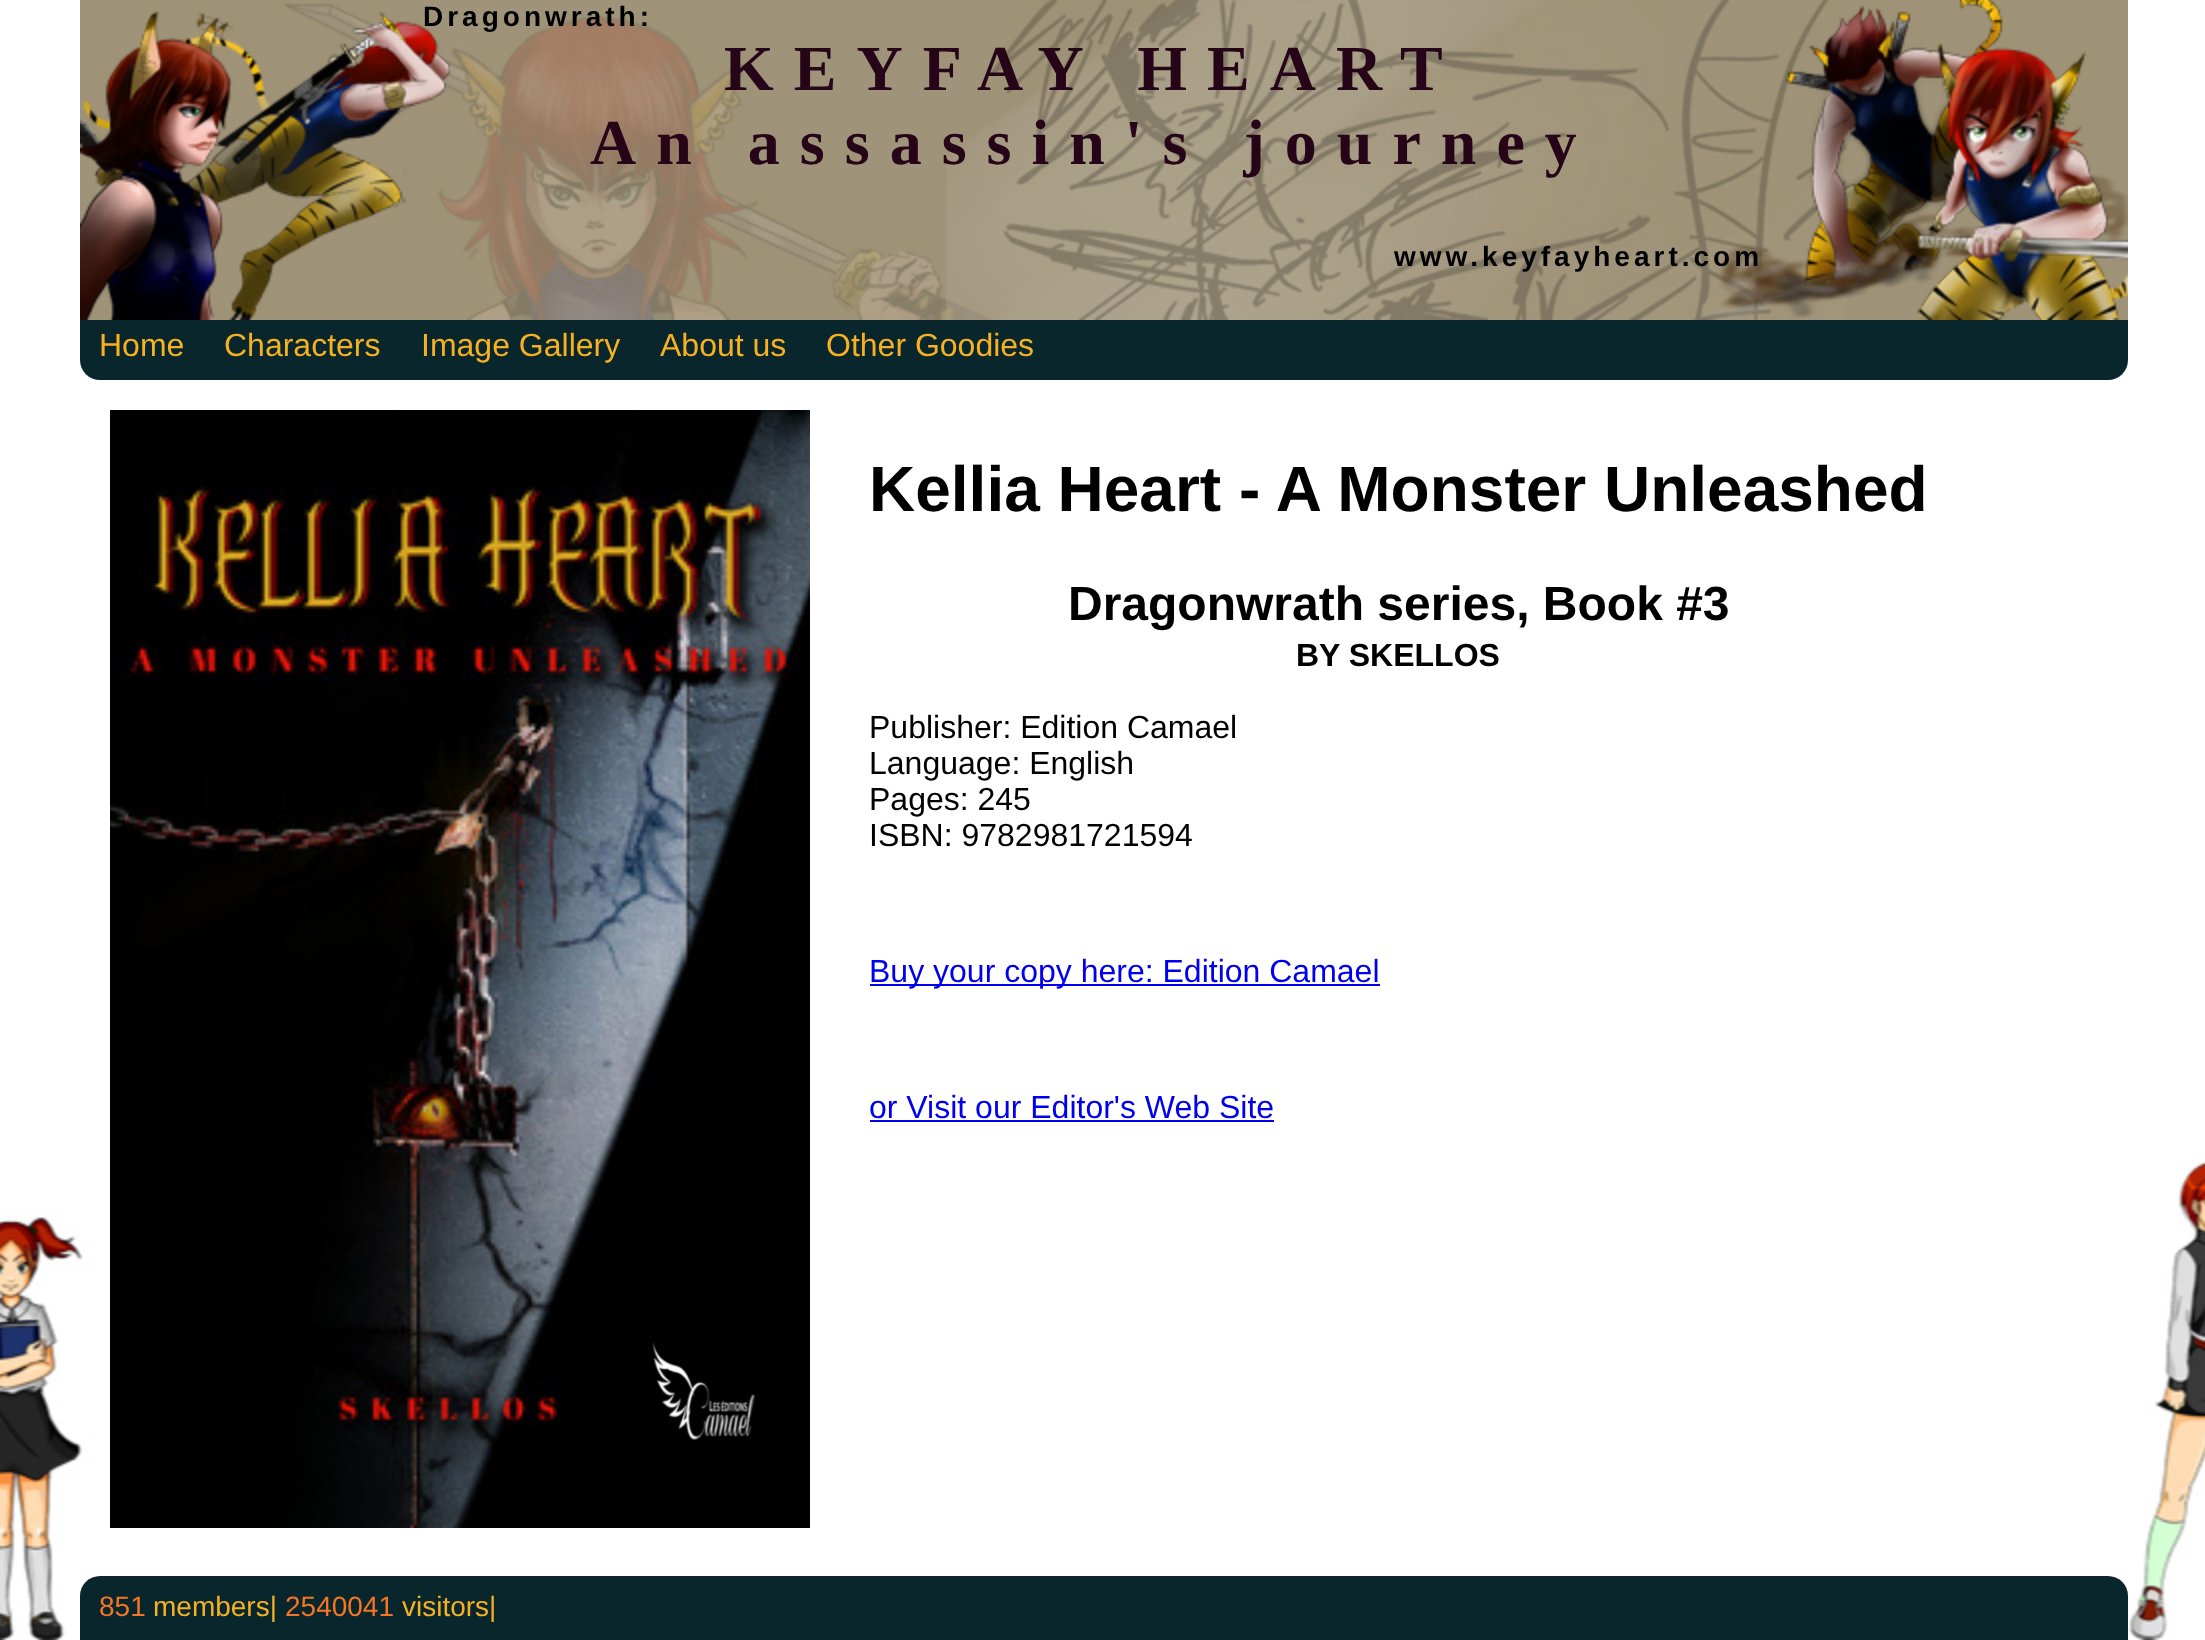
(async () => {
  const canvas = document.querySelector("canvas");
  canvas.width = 2205;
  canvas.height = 1640;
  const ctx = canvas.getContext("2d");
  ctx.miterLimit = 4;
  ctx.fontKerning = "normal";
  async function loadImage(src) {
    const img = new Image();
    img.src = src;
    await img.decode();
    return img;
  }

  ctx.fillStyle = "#ffffff";
  ctx.fillRect(0, 0, 2205, 1640);
  ctx.drawImage(await loadImage("img/1.png"), 0, 1161, 2205, 479);
  ctx.drawImage(await loadImage("img/2.png"), 80, 0, 2048, 320);
  ctx.fillStyle = "#08262c";
  ctx.beginPath();
  ctx.roundRect(80, 320, 2048, 60, [0, 0, 20, 20]);
  ctx.fill();
  ctx.drawImage(await loadImage("img/3.png"), 110, 410, 700, 1118);
  ctx.fillStyle = "#0000ee";
  ctx.fillRect(870, 984, 510, 2);
  ctx.fillRect(870, 1120, 404, 2);
  ctx.fillStyle = "#08262c";
  ctx.beginPath();
  ctx.roundRect(80, 1576, 2048, 64, [20, 20, 0, 0]);
  ctx.fill();
  ctx.letterSpacing = "4px";
  ctx.font = "bold 28px Liberation Sans";
  ctx.fillStyle = "#000000";
  ctx.fillText("Dragonwrath:", 423, 26);
  ctx.letterSpacing = "20px";
  ctx.font = "bold 64px Liberation Serif";
  ctx.fillStyle = "#250517";
  ctx.fillText("KEYFAY HEART", 724, 90);
  ctx.fillText("An assassin's journey", 590, 164);
  ctx.letterSpacing = "4px";
  ctx.font = "bold 28px Liberation Sans";
  ctx.fillStyle = "#000000";
  ctx.fillText("www.keyfayheart.com", 1394, 266);
  ctx.letterSpacing = "0px";
  ctx.font = "32px Liberation Sans";
  ctx.fillStyle = "#f5b122";
  for (const [text, x, y] of [
    ["Home", 99, 356],
    ["Characters", 224, 356],
    ["Image Gallery", 421, 356],
    ["About us", 660, 356],
    ["Other Goodies", 826, 356],
  ]) {
    ctx.fillText(text, x, y);
  }
  ctx.font = "bold 64px Liberation Sans";
  ctx.fillStyle = "#000000";
  ctx.fillText("Kellia Heart - A Monster Unleashed", 869, 511);
  ctx.font = "bold 48px Liberation Sans";
  ctx.fillText("Dragonwrath series, Book #3", 1068, 620);
  ctx.font = "bold 32px Liberation Sans";
  ctx.fillText("BY SKELLOS", 1296, 666);
  ctx.font = "32px Liberation Sans";
  for (const [text, x, y] of [
    ["Publisher: Edition Camael", 869, 738],
    ["Language: English", 869, 774],
    ["Pages: 245", 869, 810],
    ["ISBN: 9782981721594", 869, 846],
  ]) {
    ctx.fillText(text, x, y);
  }
  ctx.fillStyle = "#0000ee";
  ctx.fillText("Buy your copy here: Edition Camael", 869, 982);
  ctx.fillText("or Visit our Editor's Web Site", 869, 1118);
  ctx.font = "28px Liberation Sans";
  ctx.fillStyle = "#f57622";
  ctx.fillText("851", 99, 1616);
  ctx.fillStyle = "#f5b122";
  ctx.fillText("members|", 153, 1616);
  ctx.fillStyle = "#f57622";
  ctx.fillText("2540041", 285, 1616);
  ctx.fillStyle = "#f5b122";
  ctx.fillText("visitors|", 402, 1616);
})();
